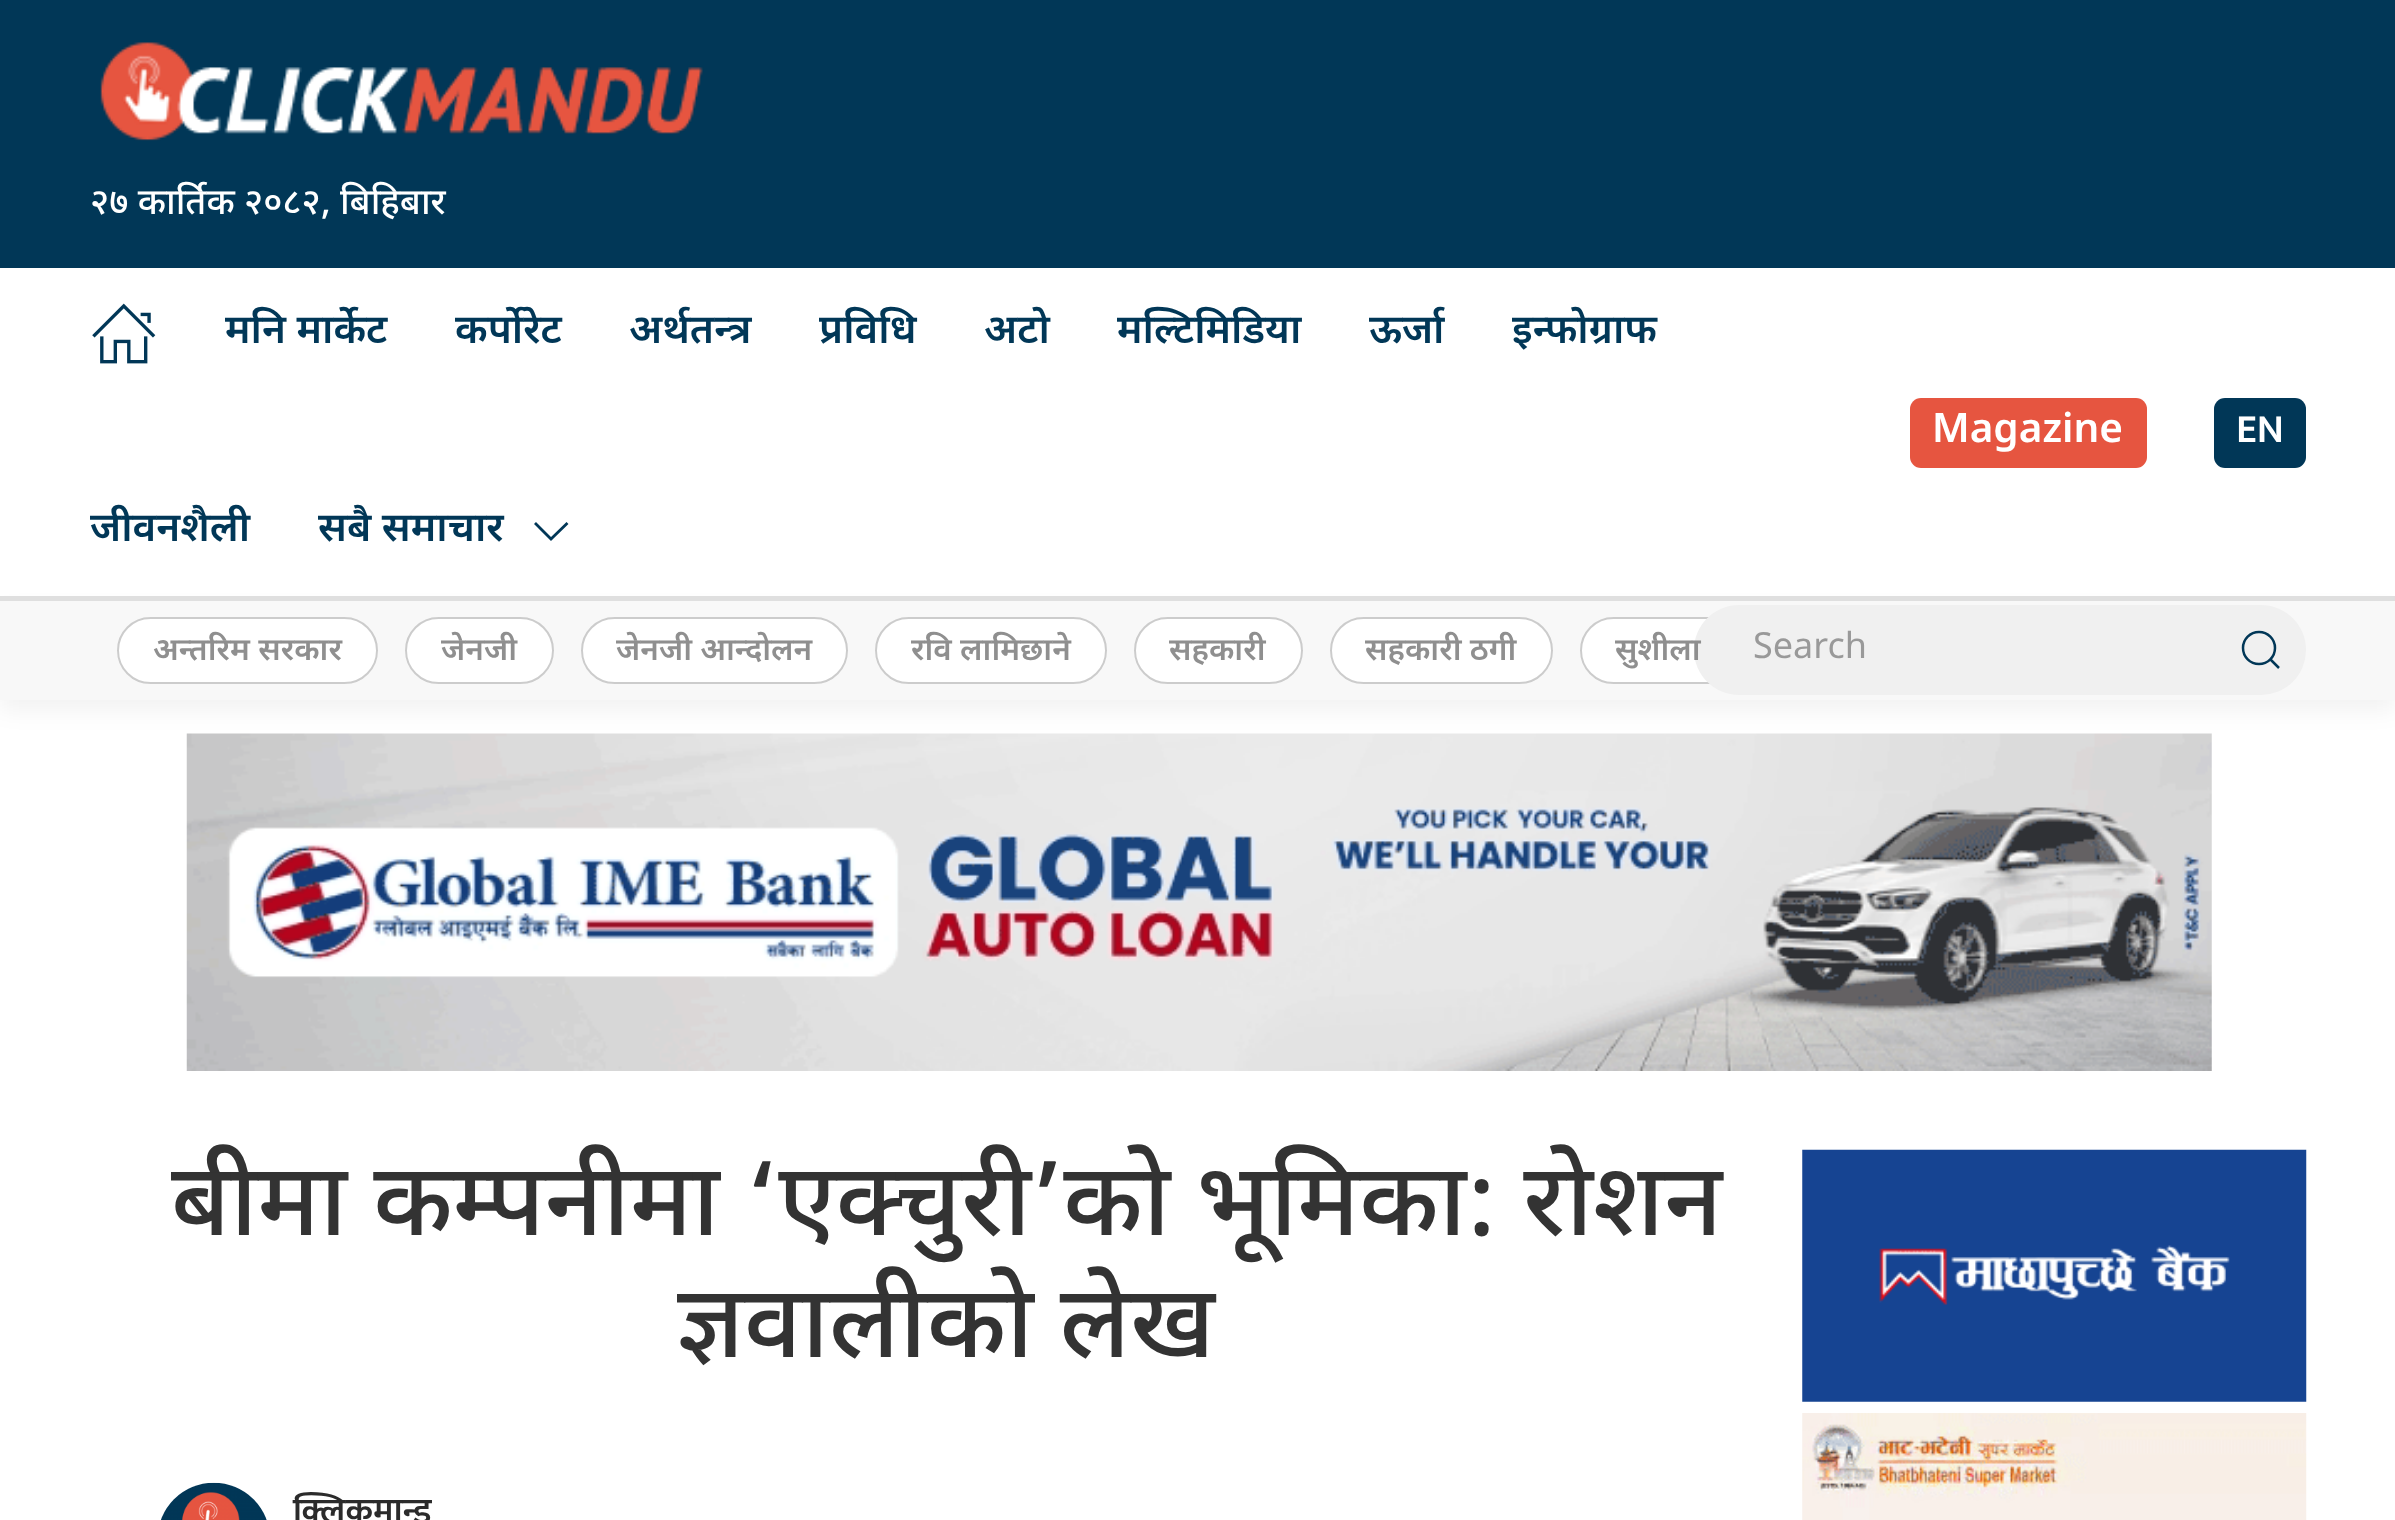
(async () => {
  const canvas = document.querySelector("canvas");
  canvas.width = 2395;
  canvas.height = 1520;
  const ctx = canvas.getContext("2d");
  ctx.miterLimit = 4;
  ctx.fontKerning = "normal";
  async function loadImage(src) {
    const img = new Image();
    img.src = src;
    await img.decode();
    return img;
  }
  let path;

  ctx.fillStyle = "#ffffff";
  ctx.fillRect(0, 0, 2395, 1520);
  ctx.fillStyle = "#013757";
  ctx.fillRect(0, 0, 2395, 268);
  ctx.drawImage(await loadImage("img/1.png"), 100, 42, 603, 99);
  ctx.drawImage(await loadImage("img/3.png"), 186, 733, 2026, 338);
  ctx.fillStyle = "rgba(0, 0, 0, 0.05)";
  ctx.filter = "blur(11px)";
  ctx.beginPath();
  ctx.rect(0, 612, 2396, 99);
  ctx.fill();
  ctx.filter = "none";
  ctx.fillStyle = "#dfdfdf";
  ctx.fillRect(0, 596, 2395, 5);
  ctx.drawImage(await loadImage("img/2.png"), 92, 303, 64, 61);
  path = new Path2D("M567.5 523L551 539L535 523");
  ctx.strokeStyle = "#013757";
  ctx.lineWidth = 2.8;
  ctx.stroke(path);
  ctx.fillStyle = "#e65540";
  ctx.beginPath();
  ctx.roundRect(1910, 398, 237, 70, 11);
  ctx.fill();
  ctx.fillStyle = "#013757";
  ctx.beginPath();
  ctx.roundRect(2214, 398, 92, 70, 11);
  ctx.fill();
  ctx.fillStyle = "#f8f8f8";
  ctx.fillRect(0, 601, 2395, 99);
  ctx.fillStyle = "#ffffff";
  ctx.beginPath();
  ctx.roundRect(117, 617, 261, 67, 33.5);
  ctx.fill();
  ctx.beginPath();
  ctx.roundRect(118, 618, 259, 65, 32.5);
  ctx.strokeStyle = "rgba(0, 0, 0, 0.2)";
  ctx.lineWidth = 2;
  ctx.stroke();
  ctx.beginPath();
  ctx.roundRect(405, 617, 149, 67, 33.5);
  ctx.fill();
  ctx.beginPath();
  ctx.roundRect(406, 618, 147, 65, 32.5);
  ctx.stroke();
  ctx.beginPath();
  ctx.roundRect(581, 617, 267, 67, 33.5);
  ctx.fill();
  ctx.beginPath();
  ctx.roundRect(582, 618, 265, 65, 32.5);
  ctx.stroke();
  ctx.beginPath();
  ctx.roundRect(875, 617, 232, 67, 33.5);
  ctx.fill();
  ctx.beginPath();
  ctx.roundRect(876, 618, 230, 65, 32.5);
  ctx.stroke();
  ctx.beginPath();
  ctx.roundRect(1134, 617, 169, 67, 33.5);
  ctx.fill();
  ctx.beginPath();
  ctx.roundRect(1135, 618, 167, 65, 32.5);
  ctx.stroke();
  ctx.beginPath();
  ctx.roundRect(1330, 617, 223, 67, 33.5);
  ctx.fill();
  ctx.beginPath();
  ctx.roundRect(1331, 618, 221, 65, 32.5);
  ctx.stroke();
  ctx.beginPath();
  ctx.roundRect(1580, 617, 234, 67, 33.5);
  ctx.fill();
  ctx.beginPath();
  ctx.roundRect(1581, 618, 232, 65, 32.5);
  ctx.stroke();
  ctx.fillStyle = "#f0f0f0";
  ctx.beginPath();
  ctx.roundRect(1694, 605, 612, 90, 45);
  ctx.fill();
  ctx.beginPath();
  ctx.arc(2259, 648, 16, 0, Math.PI * 2);
  ctx.strokeStyle = "#013757";
  ctx.lineWidth = 2.5;
  ctx.stroke();
  path = new Path2D("M2270 659L2279 668Z");
  ctx.stroke(path);
  ctx.drawImage(await loadImage("img/4.png"), 161, 1482, 106, 38);
  ctx.drawImage(await loadImage("img/5.png"), 1802, 1149, 505, 253);
  ctx.drawImage(await loadImage("img/6.png"), 1802, 1413, 505, 107);
  ctx.font = "500 36px Noto Sans Devanagari";
  ctx.fillStyle = "#ffffff";
  ctx.fillText("२७ कार्तिक २०८२, बिहिबार", 90, 214);
  ctx.font = "600 40.5px Noto Sans Devanagari";
  ctx.fillStyle = "#013757";
  for (const [text, x, y] of [
    ["मनि मार्केट", 225, 343],
    ["कर्पोरेट", 455, 343],
    ["अर्थतन्त्र", 629, 343],
    ["प्रविधि", 819, 343],
    ["अटो", 984, 343],
    ["मल्टिमिडिया", 1117, 343],
    ["ऊर्जा", 1369, 343],
    ["इन्फोग्राफ", 1512, 343],
    ["जीवनशैली", 90, 541],
    ["सबै समाचार", 318, 541],
  ]) {
    ctx.fillText(text, x, y);
  }
  ctx.fillStyle = "#ffffff";
  ctx.fillText("Magazine", 1932, 442);
  ctx.font = "600 40.5px Mukta";
  ctx.fillText("EN", 2236, 442);
  ctx.font = "600 31.5px Noto Sans";
  ctx.fillStyle = "#8f8f8f";
  for (const [text, x, y] of [
    ["अन्तरिम सरकार", 153, 660],
    ["जेनजी", 441, 660],
    ["जेनजी आन्दोलन", 616, 660],
    ["रवि लामिछाने", 911, 660],
    ["सहकारी", 1169, 660],
    ["सहकारी ठगी", 1365, 660],
    ["सुशीला", 1615, 660],
  ]) {
    ctx.fillText(text, x, y);
  }
  ctx.font = "36px Noto Sans Devanagari";
  ctx.fillStyle = "#999999";
  ctx.fillText("Search", 1753, 658);
  ctx.font = "500 101.25px Noto Sans Devanagari";
  ctx.fillStyle = "#333333";
  ctx.fillText("बीमा कम्पनीमा ‘एक्चुरी’को भूमिका: रोशन", 171, 1235);
  ctx.fillText("ज्ञवालीको लेख", 677, 1357);
  ctx.font = "600 36px Mukta";
  ctx.fillStyle = "#2b2b2b";
  ctx.fillText("क्लिकमान्डु", 293, 1523);
})();
